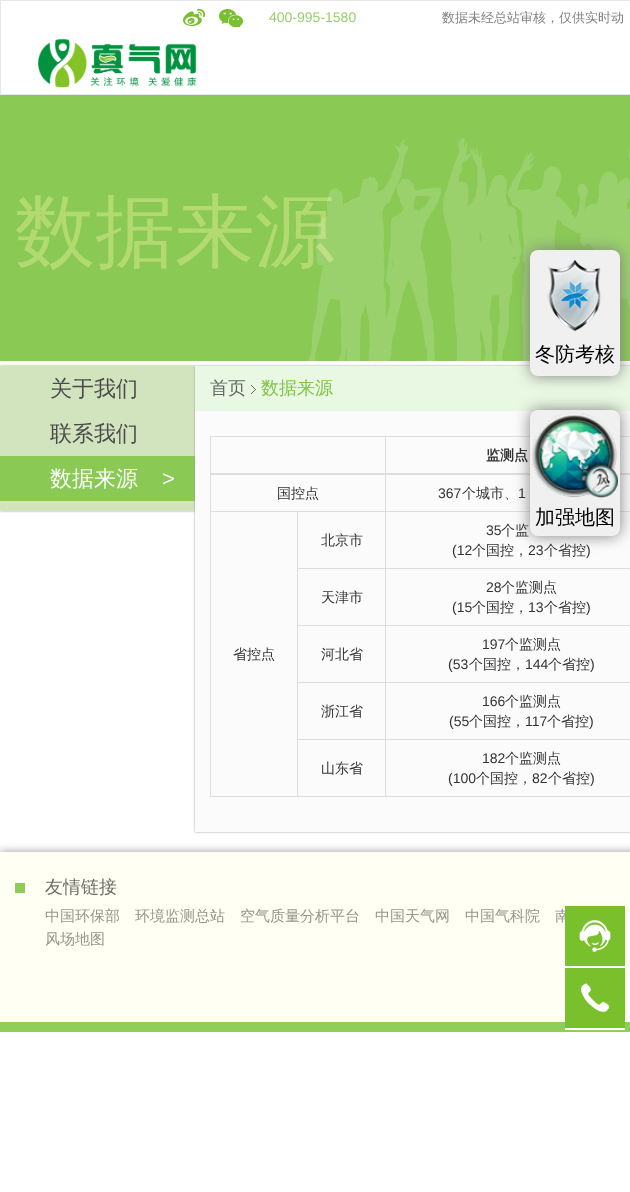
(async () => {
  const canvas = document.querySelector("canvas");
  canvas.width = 630;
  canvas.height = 1192;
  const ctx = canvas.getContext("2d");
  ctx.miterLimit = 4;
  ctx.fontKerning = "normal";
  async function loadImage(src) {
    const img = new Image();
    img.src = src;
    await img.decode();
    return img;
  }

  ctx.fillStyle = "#ffffff";
  ctx.fillRect(0, 0, 630, 1192);
  ctx.strokeStyle = "#e7e7e7";
  ctx.strokeRect(0.5, 0.5, 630, 94);
  ctx.drawImage(await loadImage("img/1.png"), 183, 9, 22, 17);
  ctx.drawImage(await loadImage("img/2.png"), 219, 9, 24, 18);
  ctx.drawImage(await loadImage("img/3.png"), 38, 38, 159, 50);
  ctx.fillStyle = "#89c954";
  ctx.fillRect(0, 95, 630, 266);
  ctx.fillStyle = "#999999";
  ctx.filter = "blur(1px)";
  ctx.beginPath();
  ctx.rect(0, 366, 195, 145);
  ctx.fill();
  ctx.filter = "none";
  ctx.fillStyle = "#d2e4be";
  ctx.fillRect(0, 366, 195, 145);
  ctx.fillStyle = "#89c954";
  ctx.fillRect(0, 456, 195, 45);
  ctx.fillStyle = "#999999";
  ctx.filter = "blur(1px)";
  ctx.beginPath();
  ctx.rect(195, 366, 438, 466);
  ctx.fill();
  ctx.filter = "none";
  ctx.fillStyle = "#fbfbfb";
  ctx.fillRect(195, 411, 435, 421);
  ctx.fillStyle = "#e9f8e3";
  ctx.fillRect(195, 366, 435, 45);
  ctx.drawImage(await loadImage("img/6.png"), 251, 385, 5, 9);
  for (const [x, y, w, h, color] of [
    [210, 436, 420, 1, "#dddddd"],
    [210, 796, 420, 1, "#dddddd"],
    [210, 436, 1, 361, "#dddddd"],
    [385, 511, 245, 1, "#dddddd"],
    [385, 568, 245, 1, "#dddddd"],
    [385, 625, 245, 1, "#dddddd"],
    [385, 682, 245, 1, "#dddddd"],
    [385, 739, 245, 1, "#dddddd"],
    [385, 739, 1, 58, "#dddddd"],
    [297, 739, 89, 1, "#dddddd"],
    [385, 682, 1, 58, "#dddddd"],
    [297, 682, 89, 1, "#dddddd"],
    [385, 625, 1, 58, "#dddddd"],
    [297, 625, 89, 1, "#dddddd"],
    [385, 568, 1, 58, "#dddddd"],
    [297, 568, 89, 1, "#dddddd"],
    [385, 511, 1, 58, "#dddddd"],
    [297, 511, 89, 1, "#dddddd"],
    [385, 436, 1, 76, "#dddddd"],
    [210, 473, 420, 2, "#dddddd"],
    [297, 739, 1, 58, "#dddddd"],
    [297, 682, 1, 58, "#dddddd"],
    [297, 625, 1, 58, "#dddddd"],
    [297, 568, 1, 58, "#dddddd"],
    [297, 511, 1, 58, "#dddddd"],
    [210, 511, 88, 1, "#dddddd"],
  ]) {
    ctx.fillStyle = color;
    ctx.fillRect(x, y, w, h);
  }
  ctx.fillStyle = "#808080";
  ctx.filter = "blur(7.5px)";
  ctx.beginPath();
  ctx.roundRect(530, 410, 90, 126, 8);
  ctx.fill();
  ctx.filter = "none";
  ctx.fillStyle = "#f0f0f0";
  ctx.beginPath();
  ctx.roundRect(530, 410, 90, 126, 8);
  ctx.fill();
  ctx.drawImage(await loadImage("img/7.png"), 532, 413, 86, 85);
  ctx.fillStyle = "#999999";
  ctx.filter = "blur(5px)";
  ctx.beginPath();
  ctx.rect(0, 852, 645, 170);
  ctx.fill();
  ctx.filter = "none";
  for (const [x, y, w, h, color] of [
    [0, 852, 630, 170, "#fffff3"],
    [15, 883, 10, 10, "#8fcd5a"],
    [565, 966, 60, 2, "#ffffff"],
    [0, 1022, 630, 10, "#8fce5b"],
    [565, 968, 60, 60, "#7ac02c"],
    [565, 1028, 60, 2, "#ffffff"],
  ]) {
    ctx.fillStyle = color;
    ctx.fillRect(x, y, w, h);
  }
  ctx.drawImage(await loadImage("img/9.png"), 581, 983, 28, 29);
  ctx.font = "14px Liberation Sans";
  ctx.fillStyle = "#9acd72";
  ctx.fillText("400-995-1580", 269, 22);
  ctx.font = "500 13px WenQuanYi Zen Hei";
  ctx.fillStyle = "#808080";
  ctx.fillText("数据未经总站审核，仅供实时动", 442, 22);
  ctx.font = "500 80px WenQuanYi Zen Hei";
  ctx.fillStyle = "#b2da71";
  ctx.fillText("数据来源", 15, 259);
  ctx.drawImage(await loadImage("img/4.png"), 308, 137, 322, 224);
  ctx.fillStyle = "#808080";
  ctx.filter = "blur(7.5px)";
  ctx.beginPath();
  ctx.roundRect(530, 250, 90, 126, 8);
  ctx.fill();
  ctx.filter = "none";
  ctx.fillStyle = "#f0f0f0";
  ctx.beginPath();
  ctx.roundRect(530, 250, 90, 126, 8);
  ctx.fill();
  ctx.drawImage(await loadImage("img/5.png"), 547, 258, 56, 74);
  ctx.font = "500 20px WenQuanYi Zen Hei";
  ctx.fillStyle = "#000000";
  ctx.fillText("冬防考核", 535, 361);
  ctx.font = "500 22px WenQuanYi Zen Hei";
  ctx.fillStyle = "#4a4c4b";
  ctx.fillText("关于我们", 50, 396);
  ctx.fillText("联系我们", 50, 441);
  ctx.fillStyle = "#fbfffb";
  ctx.fillText("数据来源", 50, 486);
  ctx.font = "22px Liberation Sans";
  ctx.fillText(">", 162, 486);
  ctx.font = "500 18px WenQuanYi Zen Hei";
  ctx.fillStyle = "#666666";
  ctx.fillText("首页", 210, 394);
  ctx.fillStyle = "#80c348";
  ctx.fillText("数据来源", 261, 394);
  ctx.font = "bold 14px WenQuanYi Zen Hei";
  ctx.fillStyle = "#333333";
  ctx.fillText("监测点", 486, 460);
  ctx.font = "500 14px WenQuanYi Zen Hei";
  ctx.fillText("国控点", 277, 498);
  ctx.font = "14px Liberation Sans";
  ctx.fillText("367", 438, 498);
  ctx.font = "500 14px WenQuanYi Zen Hei";
  ctx.fillText("个城市、", 462, 498);
  ctx.font = "14px Liberation Sans";
  ctx.fillText("1", 518, 498);
  ctx.font = "500 14px WenQuanYi Zen Hei";
  ctx.fillText("北京市", 321, 545);
  ctx.font = "14px Liberation Sans";
  ctx.fillText("35", 486, 535);
  ctx.font = "500 14px WenQuanYi Zen Hei";
  ctx.fillText("个监", 501, 535);
  ctx.font = "14px Liberation Sans";
  ctx.fillText("(12", 452, 555);
  ctx.font = "500 14px WenQuanYi Zen Hei";
  ctx.fillText("个国控，", 472, 555);
  ctx.font = "14px Liberation Sans";
  ctx.fillText("23", 528, 555);
  ctx.font = "500 14px WenQuanYi Zen Hei";
  ctx.fillText("个省控", 544, 555);
  ctx.font = "14px Liberation Sans";
  ctx.fillText(")", 586, 555);
  ctx.font = "500 14px WenQuanYi Zen Hei";
  ctx.fillText("省控点", 233, 659);
  ctx.fillText("天津市", 321, 602);
  ctx.font = "14px Liberation Sans";
  ctx.fillText("28", 486, 592);
  ctx.font = "500 14px WenQuanYi Zen Hei";
  ctx.fillText("个监测点", 501, 592);
  ctx.font = "14px Liberation Sans";
  ctx.fillText("(15", 452, 612);
  ctx.font = "500 14px WenQuanYi Zen Hei";
  ctx.fillText("个国控，", 472, 612);
  ctx.font = "14px Liberation Sans";
  ctx.fillText("13", 528, 612);
  ctx.font = "500 14px WenQuanYi Zen Hei";
  ctx.fillText("个省控", 544, 612);
  ctx.font = "14px Liberation Sans";
  ctx.fillText(")", 586, 612);
  ctx.font = "500 14px WenQuanYi Zen Hei";
  ctx.fillText("河北省", 321, 659);
  ctx.font = "14px Liberation Sans";
  ctx.fillText("197", 482, 649);
  ctx.font = "500 14px WenQuanYi Zen Hei";
  ctx.fillText("个监测点", 505, 649);
  ctx.font = "14px Liberation Sans";
  ctx.fillText("(53", 448, 669);
  ctx.font = "500 14px WenQuanYi Zen Hei";
  ctx.fillText("个国控，", 469, 669);
  ctx.font = "14px Liberation Sans";
  ctx.fillText("144", 525, 669);
  ctx.font = "500 14px WenQuanYi Zen Hei";
  ctx.fillText("个省控", 548, 669);
  ctx.font = "14px Liberation Sans";
  ctx.fillText(")", 590, 669);
  ctx.font = "500 14px WenQuanYi Zen Hei";
  ctx.fillText("浙江省", 321, 716);
  ctx.font = "14px Liberation Sans";
  ctx.fillText("166", 482, 706);
  ctx.font = "500 14px WenQuanYi Zen Hei";
  ctx.fillText("个监测点", 505, 706);
  ctx.font = "14px Liberation Sans";
  ctx.fillText("(55", 449, 726);
  ctx.font = "500 14px WenQuanYi Zen Hei";
  ctx.fillText("个国控，", 469, 726);
  ctx.font = "14px Liberation Sans";
  ctx.fillText("117", 525, 726);
  ctx.font = "500 14px WenQuanYi Zen Hei";
  ctx.fillText("个省控", 547, 726);
  ctx.font = "14px Liberation Sans";
  ctx.fillText(")", 589, 726);
  ctx.font = "500 14px WenQuanYi Zen Hei";
  ctx.fillText("山东省", 321, 773);
  ctx.font = "14px Liberation Sans";
  ctx.fillText("182", 482, 763);
  ctx.font = "500 14px WenQuanYi Zen Hei";
  ctx.fillText("个监测点", 505, 763);
  ctx.font = "14px Liberation Sans";
  ctx.fillText("(100", 448, 783);
  ctx.font = "500 14px WenQuanYi Zen Hei";
  ctx.fillText("个国控，", 476, 783);
  ctx.font = "14px Liberation Sans";
  ctx.fillText("82", 532, 783);
  ctx.font = "500 14px WenQuanYi Zen Hei";
  ctx.fillText("个省控", 548, 783);
  ctx.font = "14px Liberation Sans";
  ctx.fillText(")", 590, 783);
  ctx.font = "500 20px WenQuanYi Zen Hei";
  ctx.fillStyle = "#000000";
  ctx.fillText("加强地图", 535, 524);
  ctx.font = "500 18px WenQuanYi Zen Hei";
  ctx.fillStyle = "#6e6f6a";
  ctx.fillText("友情链接", 45, 893);
  ctx.font = "500 15px WenQuanYi Zen Hei";
  ctx.fillStyle = "#95978c";
  for (const [text, x, y] of [
    ["中国环保部", 45, 921],
    ["环境监测总站", 135, 921],
    ["空气质量分析平台", 240, 921],
    ["中国天气网", 375, 921],
    ["中国气科院", 465, 921],
    ["南", 555, 921],
    ["风场地图", 45, 944],
  ]) {
    ctx.fillText(text, x, y);
  }
  ctx.fillStyle = "#7ac02c";
  ctx.fillRect(565, 906, 60, 60);
  ctx.drawImage(await loadImage("img/8.png"), 579, 920, 32, 32);
})();
